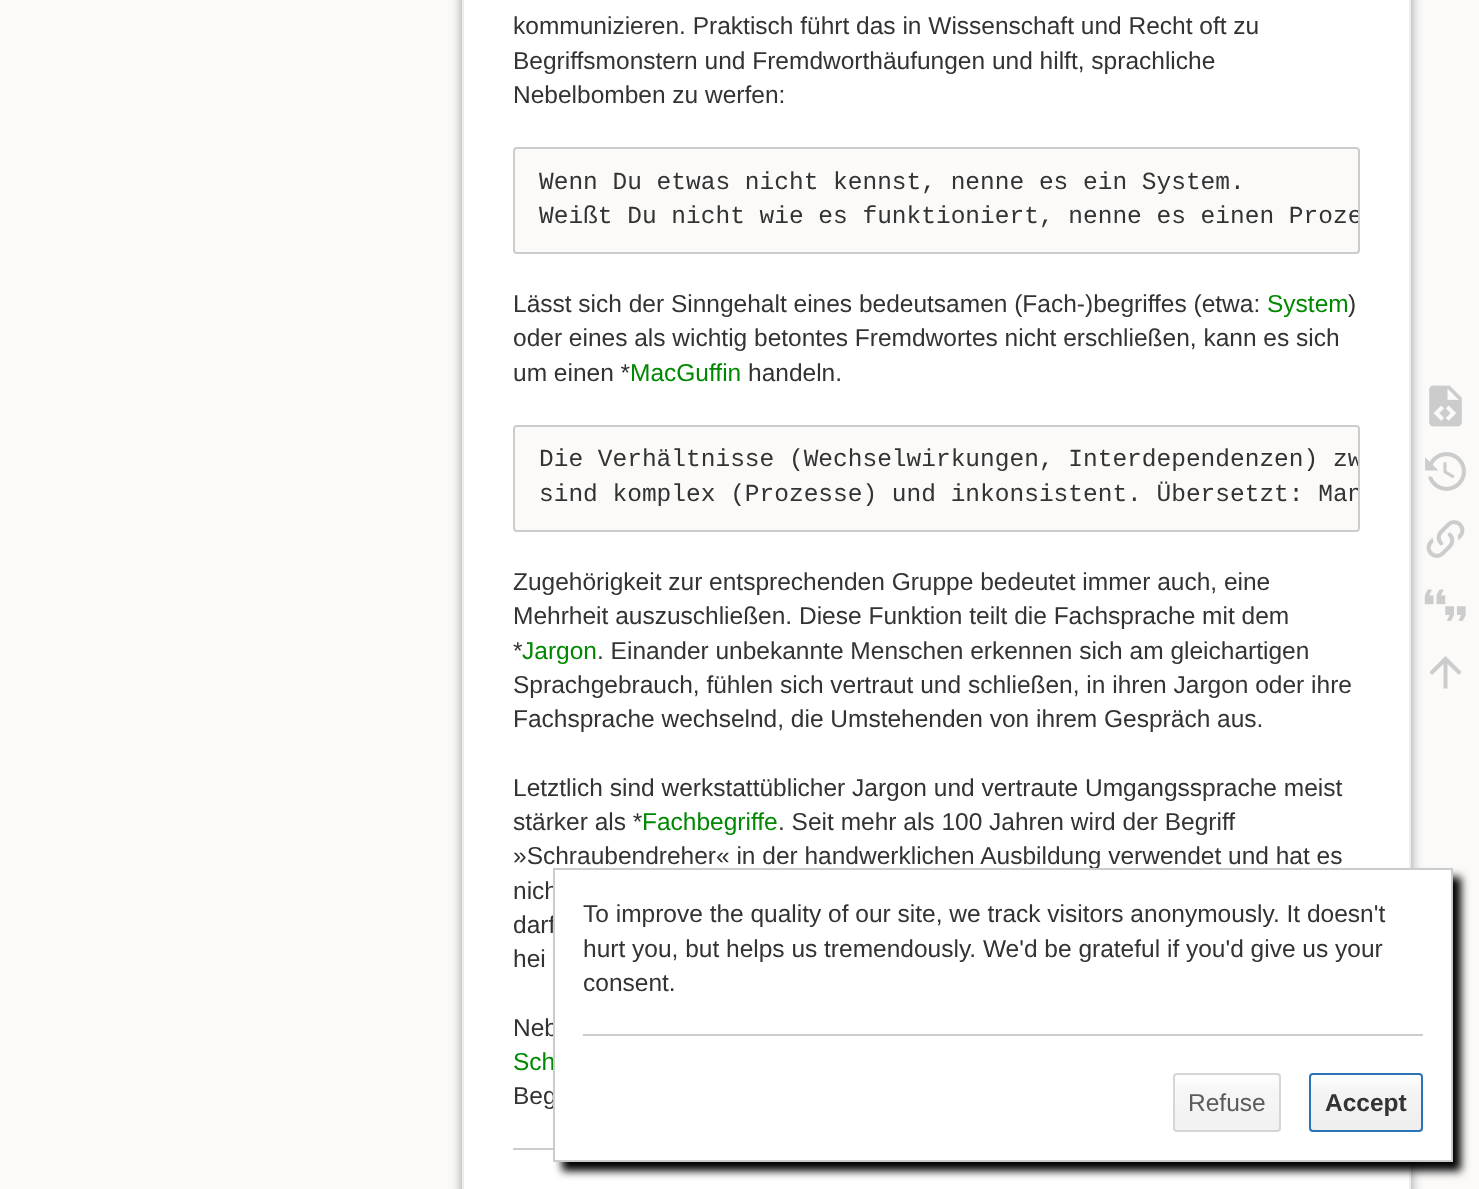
(async () => {
  const canvas = document.querySelector("canvas");
  canvas.width = 1479;
  canvas.height = 1189;
  const ctx = canvas.getContext("2d");
  ctx.miterLimit = 4;
  ctx.fontKerning = "normal";
  async function loadImage(src) {
    const img = new Image();
    img.src = src;
    await img.decode();
    return img;
  }
  let gradient, path;

  ctx.fillStyle = "#fbfaf9";
  ctx.fillRect(0, 0, 1479, 1189);
  ctx.fillStyle = "#999999";
  ctx.filter = "blur(6px)";
  ctx.beginPath();
  ctx.roundRect(462, -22, 949, 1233, 4);
  ctx.fill();
  ctx.filter = "none";
  ctx.fillStyle = "#ffffff";
  ctx.beginPath();
  ctx.rect(463, -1, 947, 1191);
  ctx.fill();
  ctx.strokeStyle = "#eeeeee";
  ctx.lineWidth = 2;
  ctx.stroke();
  ctx.fillStyle = "#fbfaf9";
  ctx.beginPath();
  ctx.roundRect(514, 148, 845, 105, 3);
  ctx.fill();
  ctx.strokeStyle = "#cccccc";
  ctx.stroke();
  ctx.beginPath();
  ctx.roundRect(514, 426, 845, 105, 3);
  ctx.fill();
  ctx.stroke();
  ctx.fillStyle = "#cccccc";
  ctx.fillRect(513, 1148, 40, 2);
  ctx.drawImage(await loadImage("img/1.png"), 1429, 385, 33, 42);
  ctx.drawImage(await loadImage("img/2.png"), 1425, 452, 41, 39);
  ctx.drawImage(await loadImage("img/3.png"), 1426, 520, 39, 38);
  ctx.drawImage(await loadImage("img/4.png"), 1424, 589, 42, 32);
  path = new Path2D("M1447.5 688.5H1443.5V664L1432 675L1429.5 672L1445.5 656L1461.5 672L1459 675L1447.5 664Z");
  ctx.fill(path);
  ctx.fillStyle = "#000000";
  ctx.filter = "blur(4.5px)";
  ctx.beginPath();
  ctx.rect(562, 877, 899, 294);
  ctx.fill();
  ctx.filter = "none";
  ctx.font = "24.5px Liberation Sans";
  ctx.fillStyle = "#333333";
  for (const [text, x, y] of [
    ["kommunizieren. Praktisch führt das in Wissenschaft und Recht oft zu", 513, 34],
    ["Begriffsmonstern und Fremdworthäufungen und hilft, sprachliche", 513, 69],
    ["Nebelbomben zu werfen:", 513, 103],
  ]) {
    ctx.fillText(text, x, y);
  }
  ctx.font = "24.5px Liberation Mono";
  ctx.fillText("Wenn Du etwas nicht kennst, nenne es ein System.", 539, 189);
  ctx.save();
  ctx.beginPath();
  ctx.roundRect(515, 149, 843, 103, 2);
  ctx.clip();
  ctx.fillText("Weißt Du nicht wie es funktioniert, nenne es einen Proze", 539, 223);
  ctx.restore();
  ctx.font = "24.5px Liberation Sans";
  ctx.fillText("Lässt sich der Sinngehalt eines bedeutsamen (Fach-)begriffes (etwa:", 513, 312);
  ctx.fillStyle = "#008800";
  ctx.fillText("System", 1267, 312);
  ctx.fillStyle = "#333333";
  for (const [text, x, y] of [
    [")", 1348, 312],
    ["oder eines als wichtig betontes Fremdwortes nicht erschließen, kann es sich", 513, 346],
    ["um einen *", 513, 381],
  ]) {
    ctx.fillText(text, x, y);
  }
  ctx.fillStyle = "#008800";
  ctx.fillText("MacGuffin", 630, 381);
  ctx.fillStyle = "#333333";
  ctx.fillText("handeln.", 748, 381);
  ctx.save();
  ctx.beginPath();
  ctx.roundRect(515, 427, 843, 103, 2);
  ctx.clip();
  ctx.font = "24.5px Liberation Mono";
  ctx.fillText("Die Verhältnisse (Wechselwirkungen, Interdependenzen) zw", 539, 466);
  ctx.fillText("sind komplex (Prozesse) und inkonsistent. Übersetzt: Man", 539, 501);
  ctx.restore();
  for (const [text, x, y] of [
    ["Zugehörigkeit zur entsprechenden Gruppe bedeutet immer auch, eine", 513, 590],
    ["Mehrheit auszuschließen. Diese Funktion teilt die Fachsprache mit dem", 513, 624],
    ["*", 513, 659],
  ]) {
    ctx.fillText(text, x, y);
  }
  ctx.fillStyle = "#008800";
  ctx.fillText("Jargon", 522, 659);
  ctx.fillStyle = "#333333";
  for (const [text, x, y] of [
    [". Einander unbekannte Menschen erkennen sich am gleichartigen", 597, 659],
    ["Sprachgebrauch, fühlen sich vertraut und schließen, in ihren Jargon oder ihre", 513, 693],
    ["Fachsprache wechselnd, die Umstehenden von ihrem Gespräch aus.", 513, 727],
    ["Letztlich sind werkstattüblicher Jargon und vertraute Umgangssprache meist", 513, 796],
    ["stärker als *", 513, 830],
  ]) {
    ctx.fillText(text, x, y);
  }
  ctx.fillStyle = "#008800";
  ctx.fillText("Fachbegriffe", 642, 830);
  ctx.fillStyle = "#333333";
  for (const [text, x, y] of [
    [". Seit mehr als 100 Jahren wird der Begriff", 778, 830],
    ["»Schraubendreher« in der handwerklichen Ausbildung verwendet und hat es", 513, 864],
    ["nich", 513, 899],
    ["darf", 513, 933],
    ["hei", 513, 967],
    ["Neb", 513, 1036],
  ]) {
    ctx.fillText(text, x, y);
  }
  ctx.fillStyle = "#008800";
  ctx.fillText("Sch", 513, 1070);
  ctx.fillStyle = "#333333";
  ctx.fillText("Beg", 513, 1104);
  ctx.fillStyle = "#ffffff";
  ctx.beginPath();
  ctx.rect(554, 869, 898, 292);
  ctx.fill();
  ctx.stroke();
  ctx.fillStyle = "#333333";
  for (const [text, x, y] of [
    ["To improve the quality of our site, we track visitors anonymously. It doesn't", 583, 922],
    ["hurt you, but helps us tremendously. We'd be grateful if you'd give us your", 583, 957],
    ["consent.", 583, 991],
  ]) {
    ctx.fillText(text, x, y);
  }
  ctx.fillStyle = "#cccccc";
  ctx.fillRect(583, 1034, 840, 2);
  ctx.save();
  ctx.beginPath();
  ctx.roundRect(1173, 1073, 108, 59, 4);
  ctx.clip();
  gradient = ctx.createLinearGradient(1227, 1075, 1227, 1131);
  gradient.addColorStop(0, "#ffffff");
  gradient.addColorStop(0.3, "#f6f6f6");
  gradient.addColorStop(0.99, "#f1f1f1");
  gradient.addColorStop(0.99, "#d6d6d6");
  ctx.fillStyle = gradient;
  ctx.fillRect(1173, 1075, 108, 56);
  ctx.restore();
  ctx.beginPath();
  ctx.roundRect(1174, 1074, 106, 57, 3);
  ctx.strokeStyle = "#d6d6d6";
  ctx.stroke();
  ctx.fillStyle = "#5c5c5c";
  ctx.fillText("Refuse", 1188, 1111);
  ctx.save();
  ctx.beginPath();
  ctx.roundRect(1309, 1073, 114, 59, 4);
  ctx.clip();
  gradient = ctx.createLinearGradient(1366, 1075, 1366, 1131);
  gradient.addColorStop(0, "#ffffff");
  gradient.addColorStop(0.3, "#f4f4f4");
  gradient.addColorStop(0.99, "#eeeeee");
  gradient.addColorStop(0.99, "#cccccc");
  ctx.fillStyle = gradient;
  ctx.fillRect(1309, 1075, 114, 56);
  ctx.restore();
  ctx.beginPath();
  ctx.roundRect(1310, 1074, 112, 57, 3);
  ctx.strokeStyle = "#2b73b7";
  ctx.stroke();
  ctx.font = "bold 24.5px Liberation Sans";
  ctx.fillStyle = "#333333";
  ctx.fillText("Accept", 1325, 1111);
})();
